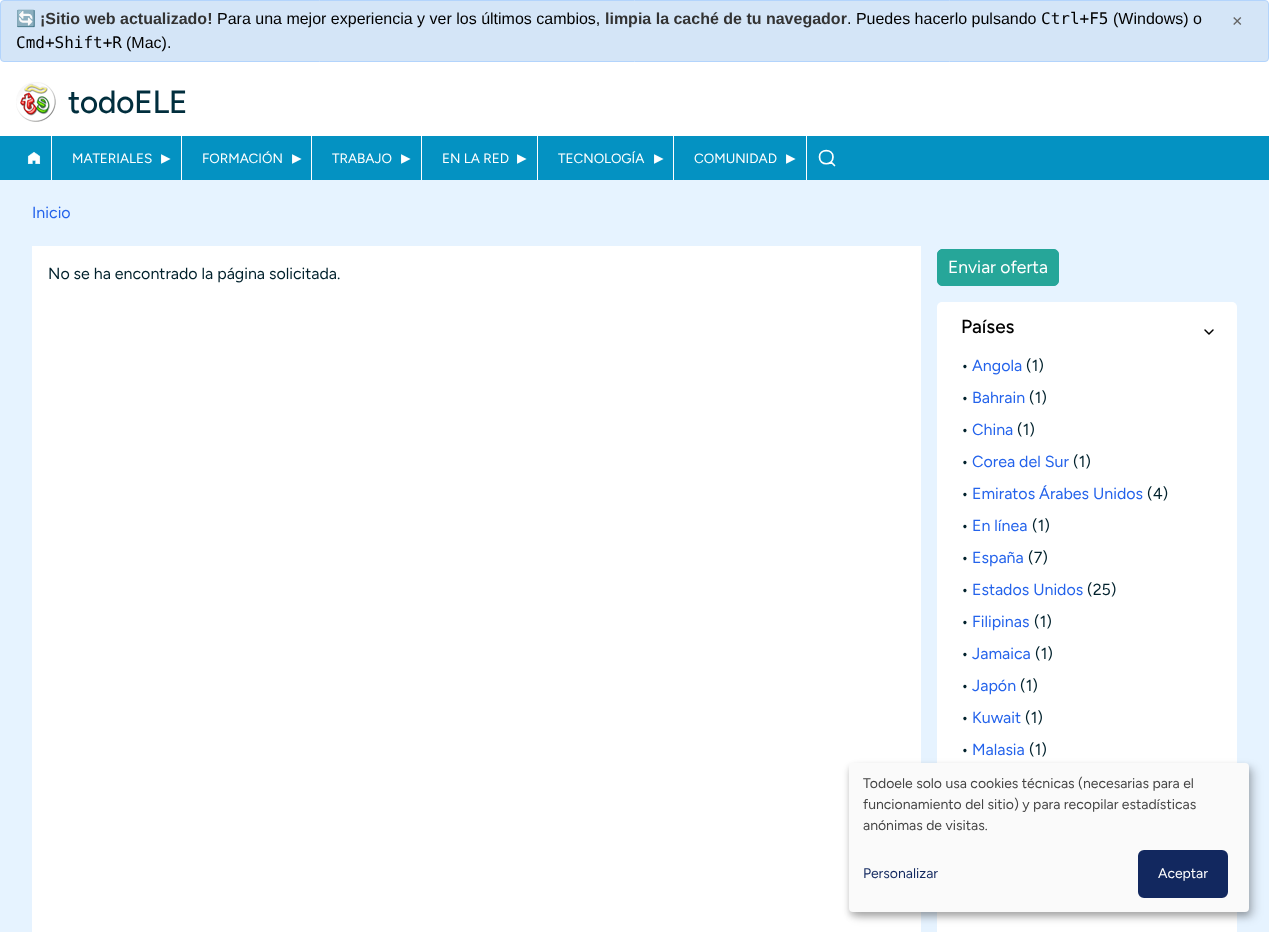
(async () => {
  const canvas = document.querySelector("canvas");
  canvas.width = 1269;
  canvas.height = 932;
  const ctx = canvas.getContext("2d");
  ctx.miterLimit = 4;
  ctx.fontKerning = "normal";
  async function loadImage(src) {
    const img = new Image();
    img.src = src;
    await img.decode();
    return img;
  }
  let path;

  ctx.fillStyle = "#ffffff";
  ctx.fillRect(0, 0, 1269, 932);
  ctx.fillStyle = "#d4e5f7";
  ctx.beginPath();
  ctx.roundRect(0.5, 0.5, 1268, 61, 3.5);
  ctx.fill();
  ctx.strokeStyle = "#b3d4fc";
  ctx.stroke();
  ctx.fillStyle = "#e6f3ff";
  ctx.fillRect(0, 180, 1269, 752);
  ctx.drawImage(await loadImage("img/1.png"), 16, 82, 40, 40);
  ctx.fillStyle = "#0492c2";
  ctx.fillRect(0, 136, 1269, 44);
  ctx.fillStyle = "#ffffff";
  ctx.fillRect(51, 136, 1, 44);
  ctx.drawImage(await loadImage("img/2.png"), 27, 152, 14, 12);
  for (const [x, y, w, h, color] of [
    [181, 136, 1, 44, "#ffffff"],
    [311, 136, 1, 44, "#ffffff"],
    [421, 136, 1, 44, "#ffffff"],
    [537, 136, 1, 44, "#ffffff"],
    [673, 136, 1, 44, "#ffffff"],
    [806, 136, 1, 44, "#ffffff"],
  ]) {
    ctx.fillStyle = color;
    ctx.fillRect(x, y, w, h);
  }
  path = new Path2D("M831 162L834.5 165.5M833 157C833 166 819.5 166 819.5 157C819.5 148.5 833 148.5 833 157Z");
  ctx.strokeStyle = "#ffffff";
  ctx.lineWidth = 1.7;
  ctx.lineCap = "round";
  ctx.lineJoin = "round";
  ctx.stroke(path);
  ctx.fillRect(32, 246, 889, 686);
  ctx.fillStyle = "#26a699";
  ctx.beginPath();
  ctx.roundRect(937.5, 249.5, 121, 36, 4.5);
  ctx.fill();
  ctx.strokeStyle = "#26a69a";
  ctx.lineWidth = 1;
  ctx.lineJoin = "miter";
  ctx.stroke();
  ctx.fillStyle = "#ffffff";
  ctx.beginPath();
  ctx.roundRect(937, 302, 300, 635, 5);
  ctx.fill();
  path = new Path2D("M1205 330L1209 334L1213 330");
  ctx.strokeStyle = "#000000";
  ctx.lineWidth = 1.5;
  ctx.lineJoin = "round";
  ctx.stroke(path);
  ctx.fillStyle = "rgba(0, 0, 0, 0.19)";
  ctx.filter = "blur(5px)";
  ctx.beginPath();
  ctx.roundRect(854, 768, 400, 149, 4);
  ctx.fill();
  ctx.filter = "none";
  ctx.fillStyle = "rgba(0, 0, 0, 0.2)";
  ctx.filter = "blur(3px)";
  ctx.beginPath();
  ctx.roundRect(849, 767, 400, 149, 4);
  ctx.fill();
  ctx.filter = "none";
  ctx.fillStyle = "#fafafa";
  ctx.beginPath();
  ctx.roundRect(849, 763, 400, 149, 4);
  ctx.fill();
  ctx.fillStyle = "#12285f";
  ctx.beginPath();
  ctx.roundRect(1139.5, 851.5, 87, 45, 4.5);
  ctx.fill();
  ctx.strokeStyle = "#12285f";
  ctx.lineWidth = 3;
  ctx.lineJoin = "miter";
  ctx.stroke();
  ctx.font = "bold 16px Noto Color Emoji";
  ctx.fillStyle = "#333333";
  ctx.fillText("🔄", 16, 24);
  ctx.font = "bold 16px Liberation Sans";
  ctx.fillText("¡Sitio web actualizado!", 40, 24);
  ctx.font = "16px Liberation Sans";
  ctx.fillStyle = "#000000";
  ctx.fillText("Para una mejor experiencia y ver los últimos cambios,", 217, 24);
  ctx.font = "bold 16px Liberation Sans";
  ctx.fillStyle = "#333333";
  ctx.fillText("limpia la caché de tu navegador", 605, 24);
  ctx.font = "16px Liberation Sans";
  ctx.fillStyle = "#000000";
  ctx.fillText(". Puedes hacerlo pulsando", 847, 24);
  ctx.font = "16px DejaVu Sans Mono";
  ctx.fillText("Ctrl+F5", 1041, 24);
  ctx.font = "16px Liberation Sans";
  ctx.fillText("(Windows) o", 1113, 24);
  ctx.font = "16px DejaVu Sans Mono";
  ctx.fillText("Cmd+Shift+R", 16, 48);
  ctx.font = "16px Liberation Sans";
  ctx.fillText("(Mac).", 126, 48);
  ctx.font = "18px Liberation Sans";
  ctx.fillStyle = "#666666";
  ctx.fillText("×", 1232, 27);
  ctx.letterSpacing = "-0.5px";
  ctx.font = "500 32px Figtree";
  ctx.fillStyle = "#012e3d";
  ctx.fillText("todoELE", 68, 113);
  ctx.letterSpacing = "0px";
  ctx.font = "13.5px Figtree";
  ctx.fillStyle = "#ffffff";
  ctx.fillText("MATERIALES", 72, 163);
  ctx.font = "19px DejaVu Sans";
  ctx.fillText("▸", 161, 164);
  ctx.font = "13.5px Figtree";
  ctx.fillText("FORMACIÓN", 202, 163);
  ctx.font = "19px DejaVu Sans";
  ctx.fillText("▸", 292, 164);
  ctx.font = "13.5px Figtree";
  ctx.fillText("TRABAJO", 332, 163);
  ctx.font = "19px DejaVu Sans";
  ctx.fillText("▸", 401, 164);
  ctx.font = "13.5px Figtree";
  ctx.fillText("EN LA RED", 442, 163);
  ctx.font = "19px DejaVu Sans";
  ctx.fillText("▸", 517, 164);
  ctx.font = "13.5px Figtree";
  ctx.fillText("TECNOLOGÍA", 558, 163);
  ctx.font = "19px DejaVu Sans";
  ctx.fillText("▸", 654, 164);
  ctx.font = "13.5px Figtree";
  ctx.fillText("COMUNIDAD", 694, 163);
  ctx.font = "19px DejaVu Sans";
  ctx.fillText("▸", 786, 164);
  ctx.font = "16px Figtree";
  ctx.fillStyle = "#2463eb";
  ctx.fillText("Inicio", 32, 218);
  ctx.fillStyle = "#01212c";
  ctx.fillText("No se ha encontrado la página solicitada.", 48, 279);
  ctx.font = "17.5px Figtree";
  ctx.fillStyle = "#ffffff";
  ctx.fillText("Enviar oferta", 948, 273);
  ctx.font = "500 19px Figtree";
  ctx.fillStyle = "#000000";
  ctx.fillText("Países", 961, 333);
  ctx.font = "16px Figtree";
  ctx.fillStyle = "#01212c";
  ctx.fillText("•", 961, 371);
  ctx.fillStyle = "#2463eb";
  ctx.fillText("Angola", 972, 371);
  ctx.fillStyle = "#01212c";
  ctx.fillText("(1)", 1026, 371);
  ctx.fillText("•", 961, 403);
  ctx.fillStyle = "#2463eb";
  ctx.fillText("Bahrain", 972, 403);
  ctx.fillStyle = "#01212c";
  ctx.fillText("(1)", 1029, 403);
  ctx.fillText("•", 961, 435);
  ctx.fillStyle = "#2463eb";
  ctx.fillText("China", 972, 435);
  ctx.fillStyle = "#01212c";
  ctx.fillText("(1)", 1017, 435);
  ctx.fillText("•", 961, 467);
  ctx.fillStyle = "#2463eb";
  ctx.fillText("Corea del Sur", 972, 467);
  ctx.fillStyle = "#01212c";
  ctx.fillText("(1)", 1073, 467);
  ctx.fillText("•", 961, 499);
  ctx.fillStyle = "#2463eb";
  ctx.fillText("Emiratos Árabes Unidos", 972, 499);
  ctx.fillStyle = "#01212c";
  ctx.fillText("(4)", 1147, 499);
  ctx.fillText("•", 961, 531);
  ctx.fillStyle = "#2463eb";
  ctx.fillText("En línea", 972, 531);
  ctx.fillStyle = "#01212c";
  ctx.fillText("(1)", 1032, 531);
  ctx.fillText("•", 961, 563);
  ctx.fillStyle = "#2463eb";
  ctx.fillText("España", 972, 563);
  ctx.fillStyle = "#01212c";
  ctx.fillText("(7)", 1028, 563);
  ctx.fillText("•", 961, 595);
  ctx.fillStyle = "#2463eb";
  ctx.fillText("Estados Unidos", 972, 595);
  ctx.fillStyle = "#01212c";
  ctx.fillText("(25)", 1087, 595);
  ctx.fillText("•", 961, 627);
  ctx.fillStyle = "#2463eb";
  ctx.fillText("Filipinas", 972, 627);
  ctx.fillStyle = "#01212c";
  ctx.fillText("(1)", 1034, 627);
  ctx.fillText("•", 961, 659);
  ctx.fillStyle = "#2463eb";
  ctx.fillText("Jamaica", 972, 659);
  ctx.fillStyle = "#01212c";
  ctx.fillText("(1)", 1035, 659);
  ctx.fillText("•", 961, 691);
  ctx.fillStyle = "#2463eb";
  ctx.fillText("Japón", 972, 691);
  ctx.fillStyle = "#01212c";
  ctx.fillText("(1)", 1020, 691);
  ctx.fillText("•", 961, 723);
  ctx.fillStyle = "#2463eb";
  ctx.fillText("Kuwait", 972, 723);
  ctx.fillStyle = "#01212c";
  ctx.fillText("(1)", 1025, 723);
  ctx.fillText("•", 961, 755);
  ctx.fillStyle = "#2463eb";
  ctx.fillText("Malasia", 972, 755);
  ctx.fillStyle = "#01212c";
  ctx.fillText("(1)", 1029, 755);
  ctx.font = "14px Figtree";
  ctx.fillStyle = "#444444";
  for (const [text, x, y] of [
    ["Todoele solo usa cookies técnicas (necesarias para el", 863, 788],
    ["funcionamiento del sitio) y para recopilar estadísticas", 863, 809],
    ["anónimas de visitas.", 863, 830],
  ]) {
    ctx.fillText(text, x, y);
  }
  ctx.fillStyle = "#12285f";
  ctx.fillText("Personalizar", 863, 878);
  ctx.fillStyle = "#ffffff";
  ctx.fillText("Aceptar", 1158, 878);
})();
